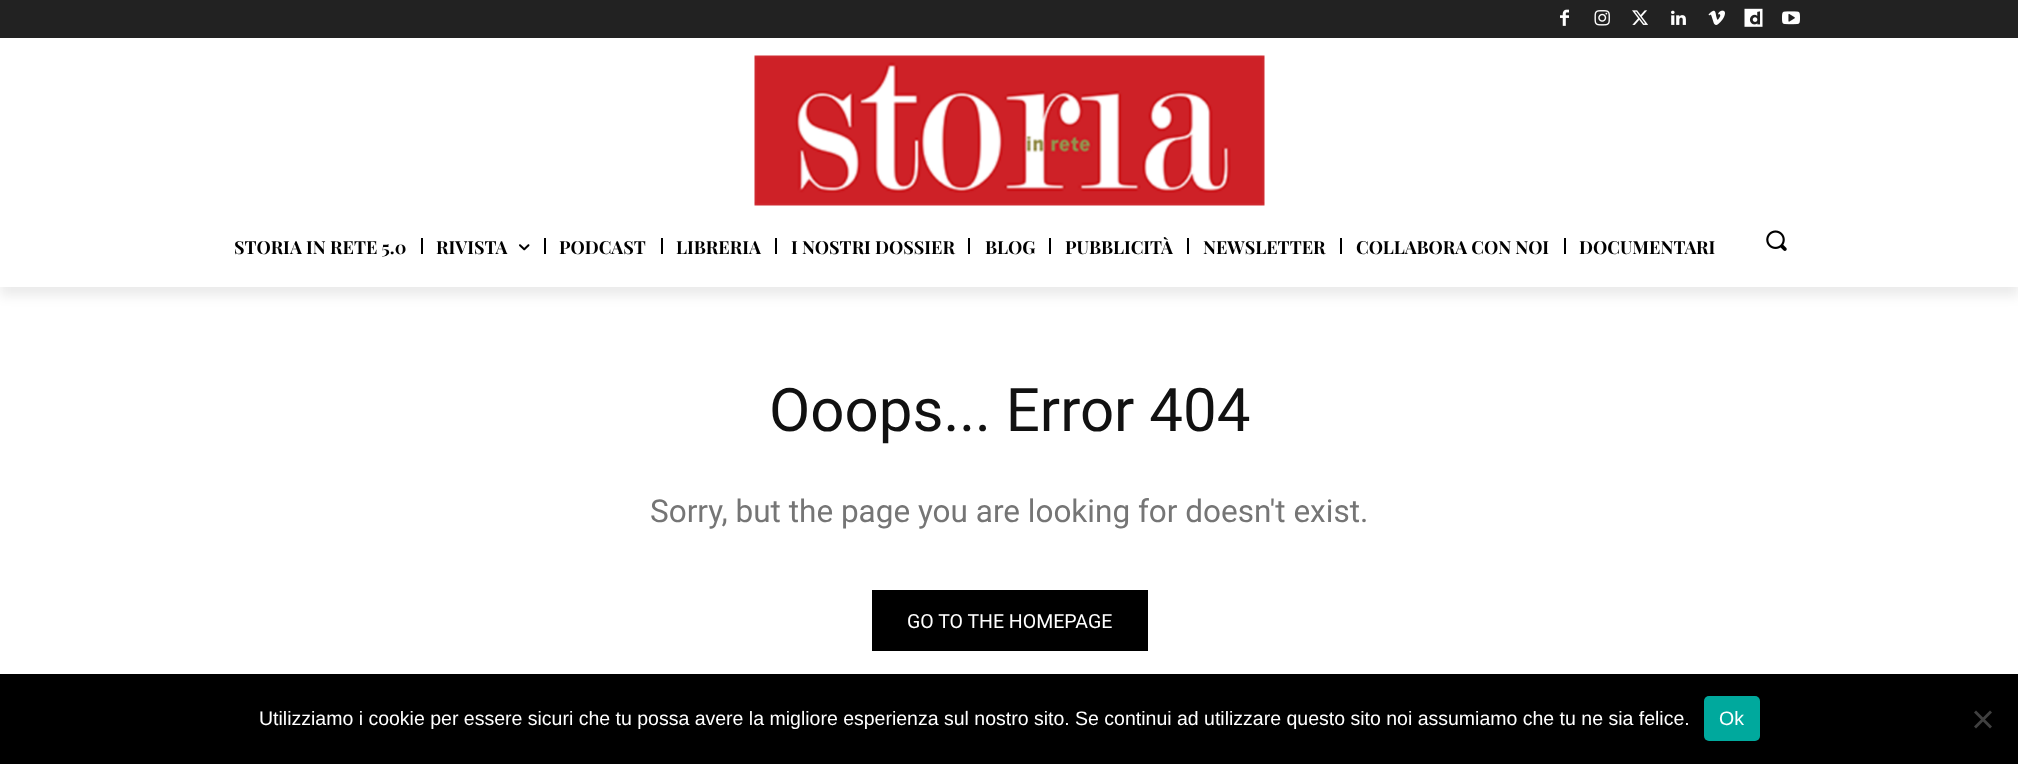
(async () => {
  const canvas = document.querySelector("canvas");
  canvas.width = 2018;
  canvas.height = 764;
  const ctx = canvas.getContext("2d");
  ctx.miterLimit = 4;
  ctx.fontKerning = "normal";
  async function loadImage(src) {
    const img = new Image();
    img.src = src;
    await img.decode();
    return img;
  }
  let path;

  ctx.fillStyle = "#ffffff";
  ctx.fillRect(0, 0, 2018, 764);
  ctx.fillStyle = "#222222";
  ctx.fillRect(0, 0, 2018, 38);
  ctx.drawImage(await loadImage("img/1.png"), 1560, 9, 9, 17);
  ctx.drawImage(await loadImage("img/2.png"), 1594, 10, 16, 16);
  ctx.drawImage(await loadImage("img/3.png"), 1632, 10, 16, 15);
  ctx.drawImage(await loadImage("img/4.png"), 1671, 10, 15, 15);
  ctx.drawImage(await loadImage("img/5.png"), 1708, 10, 17, 15);
  ctx.drawImage(await loadImage("img/6.png"), 1744, 8, 19, 19);
  ctx.drawImage(await loadImage("img/7.png"), 1782, 11, 18, 14);
  ctx.drawImage(await loadImage("img/8.png"), 754, 55, 511, 151);
  ctx.save();
  path = new Path2D("M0 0H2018V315H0ZM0 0H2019V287H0Z");
  ctx.clip(path, "evenodd");
  ctx.fillStyle = "rgba(0, 0, 0, 0.08)";
  ctx.filter = "blur(6px)";
  ctx.beginPath();
  ctx.rect(0, 9, 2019, 287);
  ctx.fill();
  ctx.filter = "none";
  ctx.restore();
  ctx.fillStyle = "#000000";
  ctx.fillRect(421, 238, 2, 16);
  ctx.drawImage(await loadImage("img/9.png"), 519, 244, 11, 7);
  for (const [x, y, w, h, color] of [
    [544, 238, 2, 16, "#000000"],
    [661, 238, 2, 16, "#000000"],
    [775, 238, 2, 16, "#000000"],
    [968, 238, 2, 16, "#000000"],
    [1049, 238, 2, 16, "#000000"],
    [1187, 238, 2, 16, "#000000"],
    [1340, 238, 2, 16, "#000000"],
    [1564, 238, 2, 16, "#000000"],
  ]) {
    ctx.fillStyle = color;
    ctx.fillRect(x, y, w, h);
  }
  ctx.drawImage(await loadImage("img/10.png"), 1766, 230, 21, 21);
  ctx.fillRect(872, 590, 276, 61);
  ctx.fillRect(0, 674, 2018, 90);
  ctx.fillStyle = "#00a99d";
  ctx.beginPath();
  ctx.roundRect(1704, 696, 56, 45, 5);
  ctx.fill();
  ctx.fillStyle = "#404040";
  path = new Path2D("M1990 710.5L1992 712.5L1976 728.5L1974 726.5Z");
  ctx.fill(path);
  path = new Path2D("M1974 712.5L1976 710.5L1992 726.5L1990 728.5Z");
  ctx.fill(path);
  ctx.font = "bold 18px Playfair Display";
  ctx.fillStyle = "#000000";
  for (const [text, x, y] of [
    ["STORIA IN RETE 5.0", 234, 254],
    ["RIVISTA", 436, 254],
    ["PODCAST", 559, 254],
    ["LIBRERIA", 676, 254],
    ["I NOSTRI DOSSIER", 791, 254],
    ["BLOG", 985, 254],
    ["PUBBLICITÀ", 1065, 254],
    ["NEWSLETTER", 1203, 254],
    ["COLLABORA CON NOI", 1356, 254],
    ["DOCUMENTARI", 1579, 254],
  ]) {
    ctx.fillText(text, x, y);
  }
  ctx.font = "60px Roboto";
  ctx.fillStyle = "#111111";
  ctx.fillText("Ooops... Error 404", 769, 431);
  ctx.font = "31.5px Roboto";
  ctx.fillStyle = "#757575";
  ctx.fillText("Sorry, but the page you are looking for doesn't exist.", 650, 522);
  ctx.font = "19.5px Roboto";
  ctx.fillStyle = "#ffffff";
  ctx.fillText("GO TO THE HOMEPAGE", 907, 628);
  ctx.font = "19.5px Liberation Sans";
  ctx.fillText("Utilizziamo i cookie per essere sicuri che tu possa avere la migliore esperienza sul nostro sito. Se continui ad utilizzare questo sito noi assumiamo che tu ne sia felice.", 259, 725);
  ctx.fillText("Ok", 1719, 725);
})();
